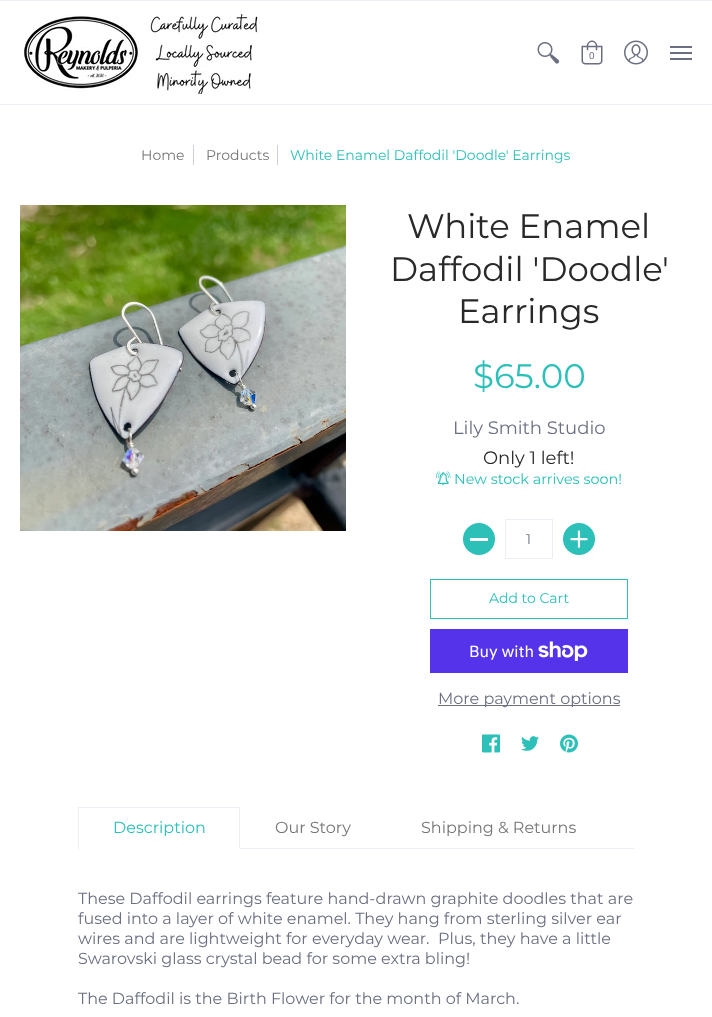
(async () => {
  const canvas = document.querySelector("canvas");
  canvas.width = 712;
  canvas.height = 1017;
  const ctx = canvas.getContext("2d");
  ctx.miterLimit = 4;
  ctx.fontKerning = "normal";
  async function loadImage(src) {
    const img = new Image();
    img.src = src;
    await img.decode();
    return img;
  }

  ctx.fillStyle = "#ffffff";
  ctx.fillRect(0, 0, 712, 1017);
  ctx.fillStyle = "#edeef4";
  ctx.fillRect(0, 0, 712, 1);
  ctx.fillRect(0, 104, 712, 1);
  ctx.drawImage(await loadImage("img/1.png"), 24, 14, 236, 80);
  ctx.drawImage(await loadImage("img/2.png"), 537, 42, 23, 22);
  ctx.drawImage(await loadImage("img/3.png"), 581, 40, 22, 25);
  ctx.drawImage(await loadImage("img/4.png"), 624, 40, 24, 25);
  for (const [x, y, w, h, color] of [
    [670, 46, 22, 2, "#6b6f81"],
    [670, 58, 22, 2, "#6b6f81"],
    [670, 52, 22, 2, "#6b6f81"],
    [193, 145, 1, 20, "#cdd0e1"],
    [277, 145, 1, 20, "#cdd0e1"],
  ]) {
    ctx.fillStyle = color;
    ctx.fillRect(x, y, w, h);
  }
  ctx.drawImage(await loadImage("img/5.png"), 20, 205, 326, 326);
  ctx.drawImage(await loadImage("img/6.png"), 436, 471, 15, 15);
  ctx.fillStyle = "#2cc0b9";
  ctx.beginPath();
  ctx.arc(479, 539, 16, 0, Math.PI * 2);
  ctx.fill();
  ctx.fillStyle = "#ffffff";
  ctx.fillRect(470, 538, 18, 3);
  ctx.strokeStyle = "#edeef4";
  ctx.strokeRect(505.5, 519.5, 47, 39);
  ctx.fillStyle = "#2cc0b9";
  ctx.beginPath();
  ctx.arc(579, 539, 16, 0, Math.PI * 2);
  ctx.fill();
  ctx.drawImage(await loadImage("img/7.png"), 570, 530, 18, 18);
  ctx.strokeStyle = "#2cc0b9";
  ctx.strokeRect(430.5, 579.5, 197, 39);
  ctx.fillStyle = "#5433eb";
  ctx.fillRect(430, 629, 198, 44);
  ctx.drawImage(await loadImage("img/8.png"), 538, 641, 50, 20);
  ctx.fillStyle = "#6b6f81";
  ctx.fillRect(438, 705, 182, 1);
  ctx.drawImage(await loadImage("img/9.png"), 482, 734, 18, 19);
  ctx.drawImage(await loadImage("img/10.png"), 521, 736, 18, 15);
  ctx.drawImage(await loadImage("img/11.png"), 560, 734, 18, 19);
  for (const [x, y, w, h, color] of [
    [78, 807, 162, 1, "#edeef4"],
    [239, 807, 1, 42, "#edeef4"],
    [239, 848, 1, 1, "#ffffff"],
    [78, 807, 1, 42, "#edeef4"],
    [240, 848, 394, 1, "#edeef4"],
  ]) {
    ctx.fillStyle = color;
    ctx.fillRect(x, y, w, h);
  }
  ctx.font = "10px Liberation Sans";
  ctx.fillStyle = "#6b6f81";
  ctx.fillText("0", 589, 59);
  ctx.font = "14px Montserrat";
  ctx.fillStyle = "#767676";
  ctx.fillText("Home", 141, 160);
  ctx.fillText("Products", 206, 160);
  ctx.fillStyle = "#2cc0b9";
  ctx.fillText("White Enamel Daffodil 'Doodle' Earrings", 290, 160);
  ctx.font = "34px Montserrat";
  ctx.fillStyle = "#292929";
  for (const [text, x, y] of [
    ["White Enamel", 407, 238],
    ["Daffodil 'Doodle'", 390, 281],
    ["Earrings", 458, 323],
  ]) {
    ctx.fillText(text, x, y);
  }
  ctx.fillStyle = "#2cc0b9";
  ctx.fillText("$65.00", 473, 388);
  ctx.font = "18px Montserrat";
  ctx.fillStyle = "#6b6f81";
  ctx.fillText("Lily Smith Studio", 453, 434);
  ctx.fillStyle = "#292929";
  ctx.fillText("Only 1 left!", 483, 464);
  ctx.font = "14.4px Montserrat";
  ctx.fillStyle = "#2cc0b9";
  ctx.fillText("New stock arrives soon!", 454, 484);
  ctx.font = "14px Montserrat";
  ctx.fillStyle = "#6b6f81";
  ctx.fillText("1", 526, 544);
  ctx.fillStyle = "#2cc0b9";
  ctx.fillText("Add to Cart", 489, 603);
  ctx.font = "16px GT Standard";
  ctx.fillStyle = "#ffffff";
  ctx.fillText("Buy with", 469, 657);
  ctx.font = "16px Montserrat";
  ctx.fillStyle = "#6b6f81";
  ctx.fillText("More payment options", 438, 704);
  ctx.fillStyle = "#2cc0b9";
  ctx.fillText("Description", 113, 833);
  ctx.fillStyle = "#767676";
  ctx.fillText("Our Story", 275, 833);
  ctx.fillText("Shipping & Returns", 421, 833);
  ctx.fillStyle = "#6b6f81";
  for (const [text, x, y] of [
    ["These Daffodil earrings feature hand-drawn graphite doodles that are", 78, 904],
    ["fused into a layer of white enamel. They hang from sterling silver ear", 78, 924],
    ["wires and are lightweight for everyday wear.", 78, 944],
    ["Plus, they have a little", 438, 944],
    ["Swarovski glass crystal bead for some extra bling!", 78, 964],
    ["The Daffodil is the Birth Flower for the month of March.", 78, 1004],
  ]) {
    ctx.fillText(text, x, y);
  }
})();
